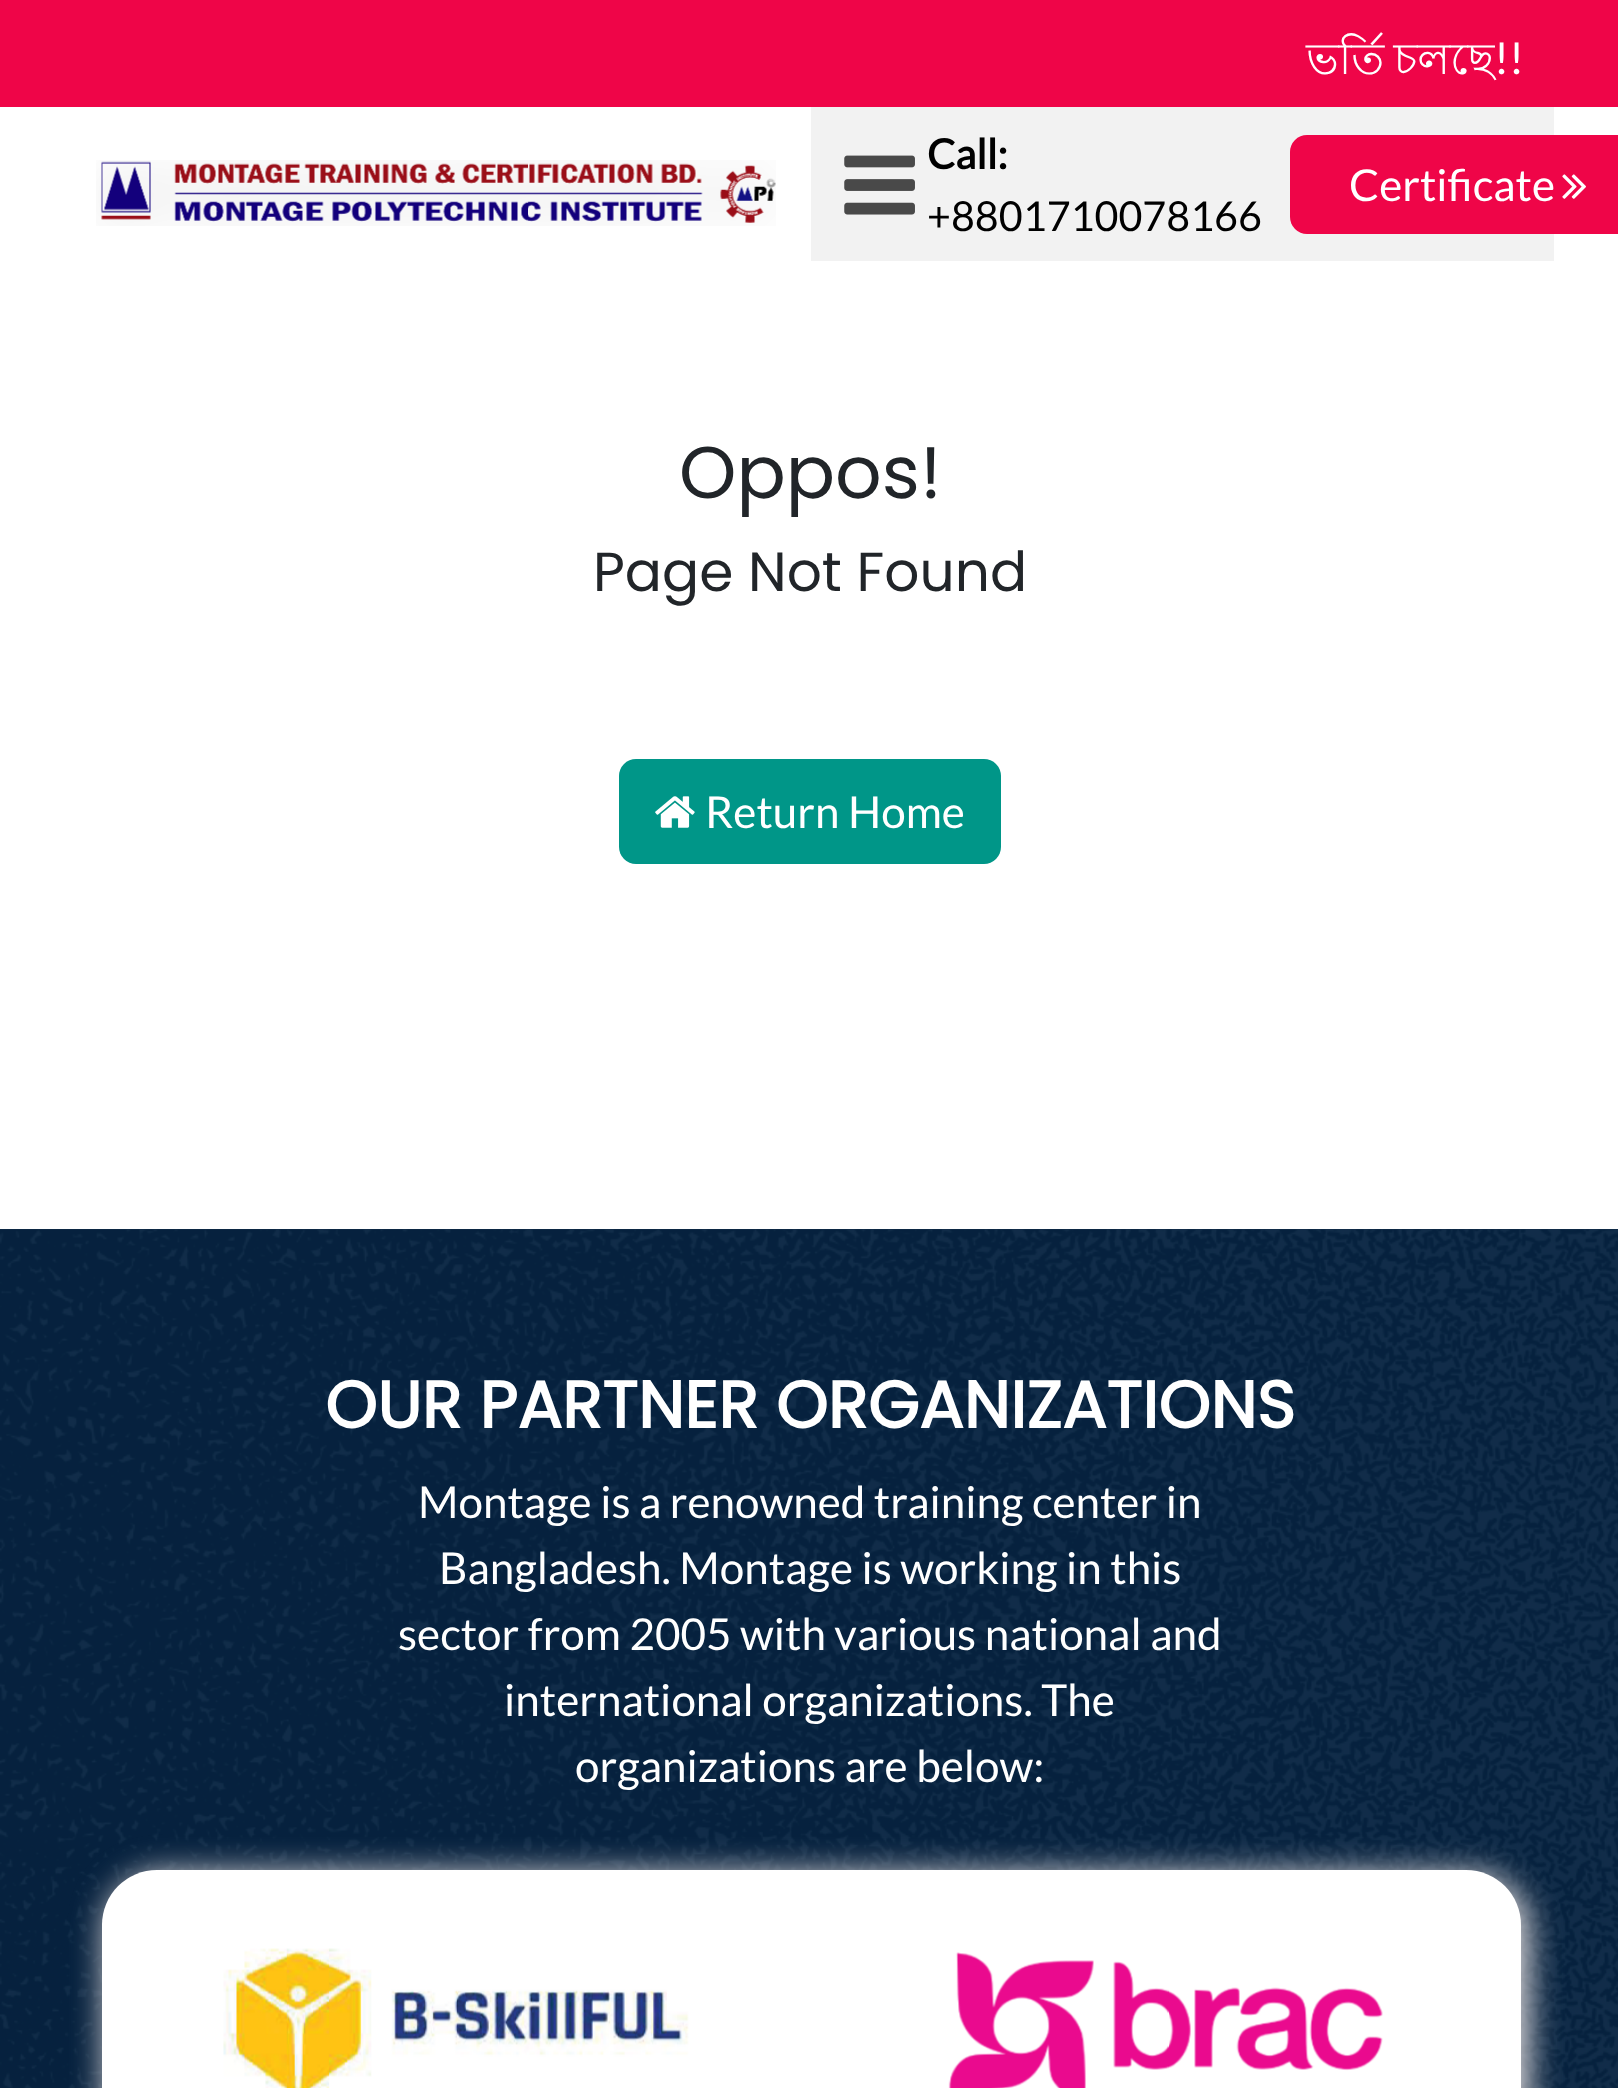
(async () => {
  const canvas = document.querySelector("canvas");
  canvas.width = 1618;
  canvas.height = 2088;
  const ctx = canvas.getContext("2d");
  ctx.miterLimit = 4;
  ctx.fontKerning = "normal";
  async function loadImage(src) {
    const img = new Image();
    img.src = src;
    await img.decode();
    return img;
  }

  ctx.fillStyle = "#ffffff";
  ctx.fillRect(0, 0, 1618, 2088);
  ctx.fillStyle = "#112c49";
  ctx.fillRect(0, 1229, 1618, 1);
  ctx.fillStyle = "#ef0548";
  ctx.fillRect(0, 0, 1618, 107);
  ctx.drawImage(await loadImage("img/1.png"), 96, 160, 680, 66);
  ctx.fillStyle = "#f2f2f2";
  ctx.fillRect(811, 107, 743, 154);
  ctx.drawImage(await loadImage("img/2.png"), 844, 155, 71, 60);
  ctx.fillStyle = "#ef0548";
  ctx.beginPath();
  ctx.roundRect(1290, 135, 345, 99, 17);
  ctx.fill();
  ctx.drawImage(await loadImage("img/3.png"), 1562, 174, 24, 25);
  ctx.fillStyle = "#009688";
  ctx.beginPath();
  ctx.roundRect(619, 759, 382, 105, 17);
  ctx.fill();
  ctx.drawImage(await loadImage("img/4.png"), 655, 796, 40, 32);
  ctx.drawImage(await loadImage("img/5.png"), 0, 1229, 1618, 859);
  ctx.fillStyle = "#e5dfdf";
  ctx.filter = "blur(16.5px)";
  ctx.beginPath();
  ctx.roundRect(105, 1873, 1424, 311, 58);
  ctx.fill();
  ctx.filter = "none";
  ctx.fillStyle = "#ffffff";
  ctx.beginPath();
  ctx.roundRect(102, 1870, 1419, 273, 55);
  ctx.fill();
  ctx.drawImage(await loadImage("img/6.png"), 223, 1948, 466, 140);
  ctx.drawImage(await loadImage("img/7.png"), 948, 1952, 435, 136);
  ctx.wordSpacing = "-3px";
  ctx.font = "44px Lohit Bengali";
  ctx.fillText("ভর্তি চলছে", 1306, 74);
  ctx.wordSpacing = "0px";
  ctx.font = "44px Lato";
  ctx.fillText("!!", 1494, 74);
  ctx.font = "bold 41.25px Lato";
  ctx.fillStyle = "#000000";
  ctx.fillText("Call:", 927, 169);
  ctx.font = "41.25px Lato";
  ctx.fillText("+8801710078166", 927, 231);
  ctx.font = "44px Lato";
  ctx.fillStyle = "#ffffff";
  ctx.fillText("Certificate", 1349, 201);
  ctx.font = "73px Poppins";
  ctx.fillStyle = "#212529";
  ctx.fillText("Oppos!", 679, 498);
  ctx.font = "55px Poppins";
  ctx.fillText("Page Not Found", 593, 591);
  ctx.font = "44px Lato";
  ctx.fillStyle = "#ffffff";
  ctx.fillText("Return Home", 705, 828);
  ctx.font = "bold 66px Poppins";
  ctx.fillText("OUR PARTNER ORGANIZATIONS", 325, 1428);
  ctx.font = "44px Lato";
  for (const [text, x, y] of [
    ["Montage is a renowned training center in", 418, 1518],
    ["Bangladesh. Montage is working in this", 439, 1584],
    ["sector from 2005 with various national and", 398, 1650],
    ["international organizations. The", 504, 1716],
    ["organizations are below:", 575, 1782],
  ]) {
    ctx.fillText(text, x, y);
  }
})();
